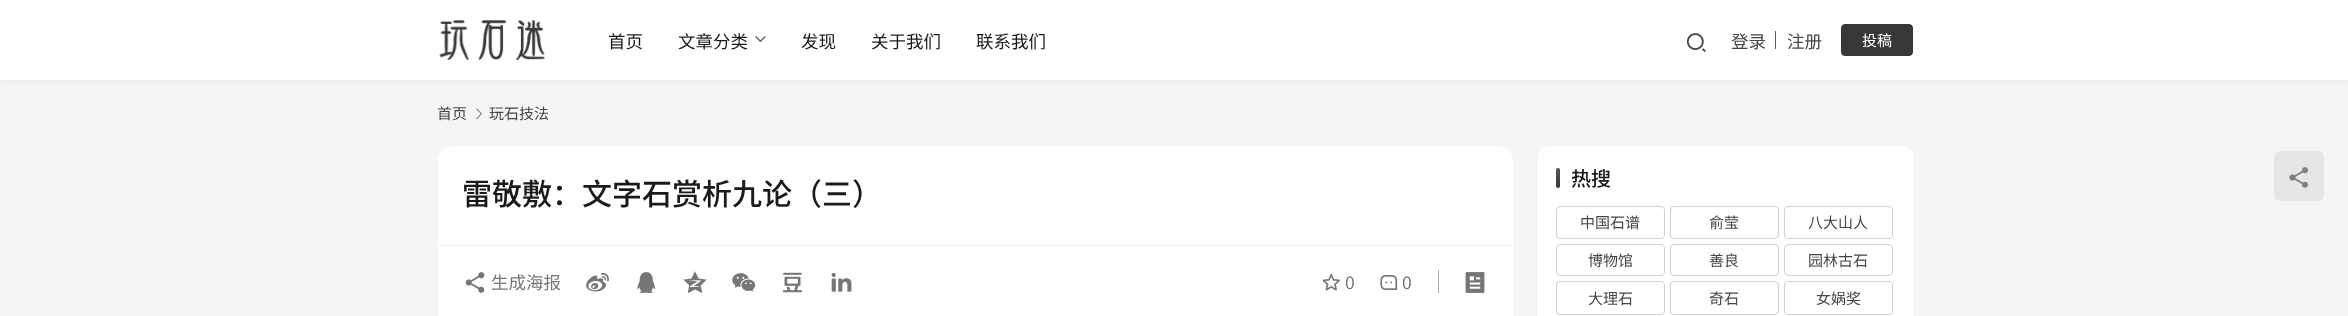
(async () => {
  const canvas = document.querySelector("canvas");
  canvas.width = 2348;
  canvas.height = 316;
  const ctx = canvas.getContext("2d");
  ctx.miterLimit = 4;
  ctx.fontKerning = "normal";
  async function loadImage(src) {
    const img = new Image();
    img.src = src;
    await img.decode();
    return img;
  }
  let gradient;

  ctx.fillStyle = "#f5f5f5";
  ctx.fillRect(0, 0, 2348, 316);
  ctx.fillStyle = "rgba(26, 26, 26, 0.06)";
  ctx.filter = "blur(2px)";
  ctx.beginPath();
  ctx.rect(-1, -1, 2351, 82);
  ctx.fill();
  ctx.filter = "none";
  ctx.fillStyle = "#ffffff";
  ctx.fillRect(0, 0, 2348, 80);
  ctx.drawImage(await loadImage("img/1.png"), 439, 20, 106, 40);
  ctx.drawImage(await loadImage("img/2.png"), 755, 36, 11, 6);
  ctx.drawImage(await loadImage("img/3.png"), 1686, 33, 20, 20);
  ctx.fillStyle = "#5a5a5a";
  ctx.fillRect(1775, 31, 1, 18);
  ctx.fillStyle = "#383735";
  ctx.beginPath();
  ctx.roundRect(1841.5, 24.5, 71, 31, 3.5);
  ctx.fill();
  ctx.strokeStyle = "#383735";
  ctx.stroke();
  ctx.drawImage(await loadImage("img/4.png"), 476, 108, 6, 12);
  ctx.fillStyle = "#ffffff";
  ctx.beginPath();
  ctx.roundRect(438, 146, 1075, 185, 15);
  ctx.fill();
  ctx.fillStyle = "#efefef";
  ctx.fillRect(438, 245, 1075, 1);
  ctx.drawImage(await loadImage("img/5.png"), 465, 272, 20, 21);
  ctx.drawImage(await loadImage("img/6.png"), 586, 273, 23, 19);
  ctx.drawImage(await loadImage("img/7.png"), 637, 272, 19, 21);
  ctx.drawImage(await loadImage("img/8.png"), 683, 271, 24, 22);
  ctx.drawImage(await loadImage("img/9.png"), 732, 273, 24, 19);
  ctx.drawImage(await loadImage("img/10.png"), 782, 272, 21, 21);
  ctx.drawImage(await loadImage("img/11.png"), 831, 273, 21, 19);
  ctx.drawImage(await loadImage("img/12.png"), 1322, 274, 18, 17);
  ctx.drawImage(await loadImage("img/13.png"), 1380, 275, 18, 15);
  ctx.fillStyle = "#adadad";
  ctx.fillRect(1438, 270, 1, 23);
  ctx.drawImage(await loadImage("img/14.png"), 1465, 272, 20, 21);
  ctx.fillStyle = "#ffffff";
  ctx.beginPath();
  ctx.roundRect(1538, 146, 375, 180, 10);
  ctx.fill();
  ctx.fillStyle = "#383735";
  ctx.beginPath();
  ctx.roundRect(1556, 168, 4, 20, 2);
  ctx.fill();
  gradient = ctx.createLinearGradient(1558, 168, 1558, 188);
  gradient.addColorStop(0, "rgba(255, 255, 255, 0.15)");
  gradient.addColorStop(1, "rgba(255, 255, 255, 0)");
  ctx.fillStyle = gradient;
  ctx.beginPath();
  ctx.roundRect(1556, 168, 4, 20, 2);
  ctx.fill();
  ctx.beginPath();
  ctx.roundRect(1556.5, 206.5, 108, 32, 3.5);
  ctx.strokeStyle = "#d1d1d1";
  ctx.stroke();
  ctx.beginPath();
  ctx.roundRect(1670.5, 206.5, 108, 32, 3.5);
  ctx.stroke();
  ctx.beginPath();
  ctx.roundRect(1784.5, 206.5, 108, 32, 3.5);
  ctx.stroke();
  ctx.beginPath();
  ctx.roundRect(1556.5, 244.5, 108, 31, 3.5);
  ctx.stroke();
  ctx.beginPath();
  ctx.roundRect(1670.5, 244.5, 108, 31, 3.5);
  ctx.stroke();
  ctx.beginPath();
  ctx.roundRect(1784.5, 244.5, 108, 31, 3.5);
  ctx.stroke();
  ctx.beginPath();
  ctx.roundRect(1556.5, 281.5, 108, 33, 3.5);
  ctx.stroke();
  ctx.beginPath();
  ctx.roundRect(1670.5, 281.5, 108, 33, 3.5);
  ctx.stroke();
  ctx.beginPath();
  ctx.roundRect(1784.5, 281.5, 108, 33, 3.5);
  ctx.stroke();
  ctx.fillStyle = "#e6e6e6";
  ctx.beginPath();
  ctx.roundRect(2274, 151, 50, 50, 6);
  ctx.fill();
  ctx.drawImage(await loadImage("img/15.png"), 2289, 167, 20, 21);
  ctx.font = "17.5px Noto Sans CJK SC";
  ctx.fillStyle = "#1a1a1a";
  for (const [text, x, y] of [
    ["首页", 608, 48],
    ["文章分类", 678, 48],
    ["发现", 801, 48],
    ["关于我们", 871, 48],
    ["联系我们", 976, 48],
  ]) {
    ctx.fillText(text, x, y);
  }
  ctx.fillStyle = "#464646";
  ctx.fillText("登录", 1731, 48);
  ctx.fillText("注册", 1787, 48);
  ctx.font = "15px Noto Sans CJK SC";
  ctx.fillStyle = "#ffffff";
  ctx.fillText("投稿", 1862, 46);
  ctx.fillStyle = "#464646";
  ctx.fillText("首页", 437, 119);
  ctx.fillText("玩石技法", 489, 119);
  ctx.font = "500 30px Noto Sans CJK SC";
  ctx.fillStyle = "#1a1a1a";
  ctx.fillText("雷敬敷：文字石赏析九论（三）", 462, 205);
  ctx.font = "17.5px Noto Sans CJK SC";
  ctx.fillStyle = "#767676";
  for (const [text, x, y] of [
    ["生成海报", 491, 289],
    ["0", 1345, 289],
    ["0", 1402, 289],
  ]) {
    ctx.fillText(text, x, y);
  }
  ctx.font = "500 20px Noto Sans CJK SC";
  ctx.fillStyle = "#1a1a1a";
  ctx.fillText("热搜", 1571, 186);
  ctx.font = "15px Noto Sans CJK SC";
  ctx.fillStyle = "#464646";
  for (const [text, x, y] of [
    ["中国石谱", 1580, 228],
    ["俞莹", 1709, 228],
    ["八大山人", 1808, 228],
    ["博物馆", 1588, 266],
    ["善良", 1709, 266],
    ["园林古石", 1808, 266],
    ["大理石", 1588, 304],
    ["奇石", 1709, 304],
    ["女娲奖", 1816, 304],
  ]) {
    ctx.fillText(text, x, y);
  }
})();
